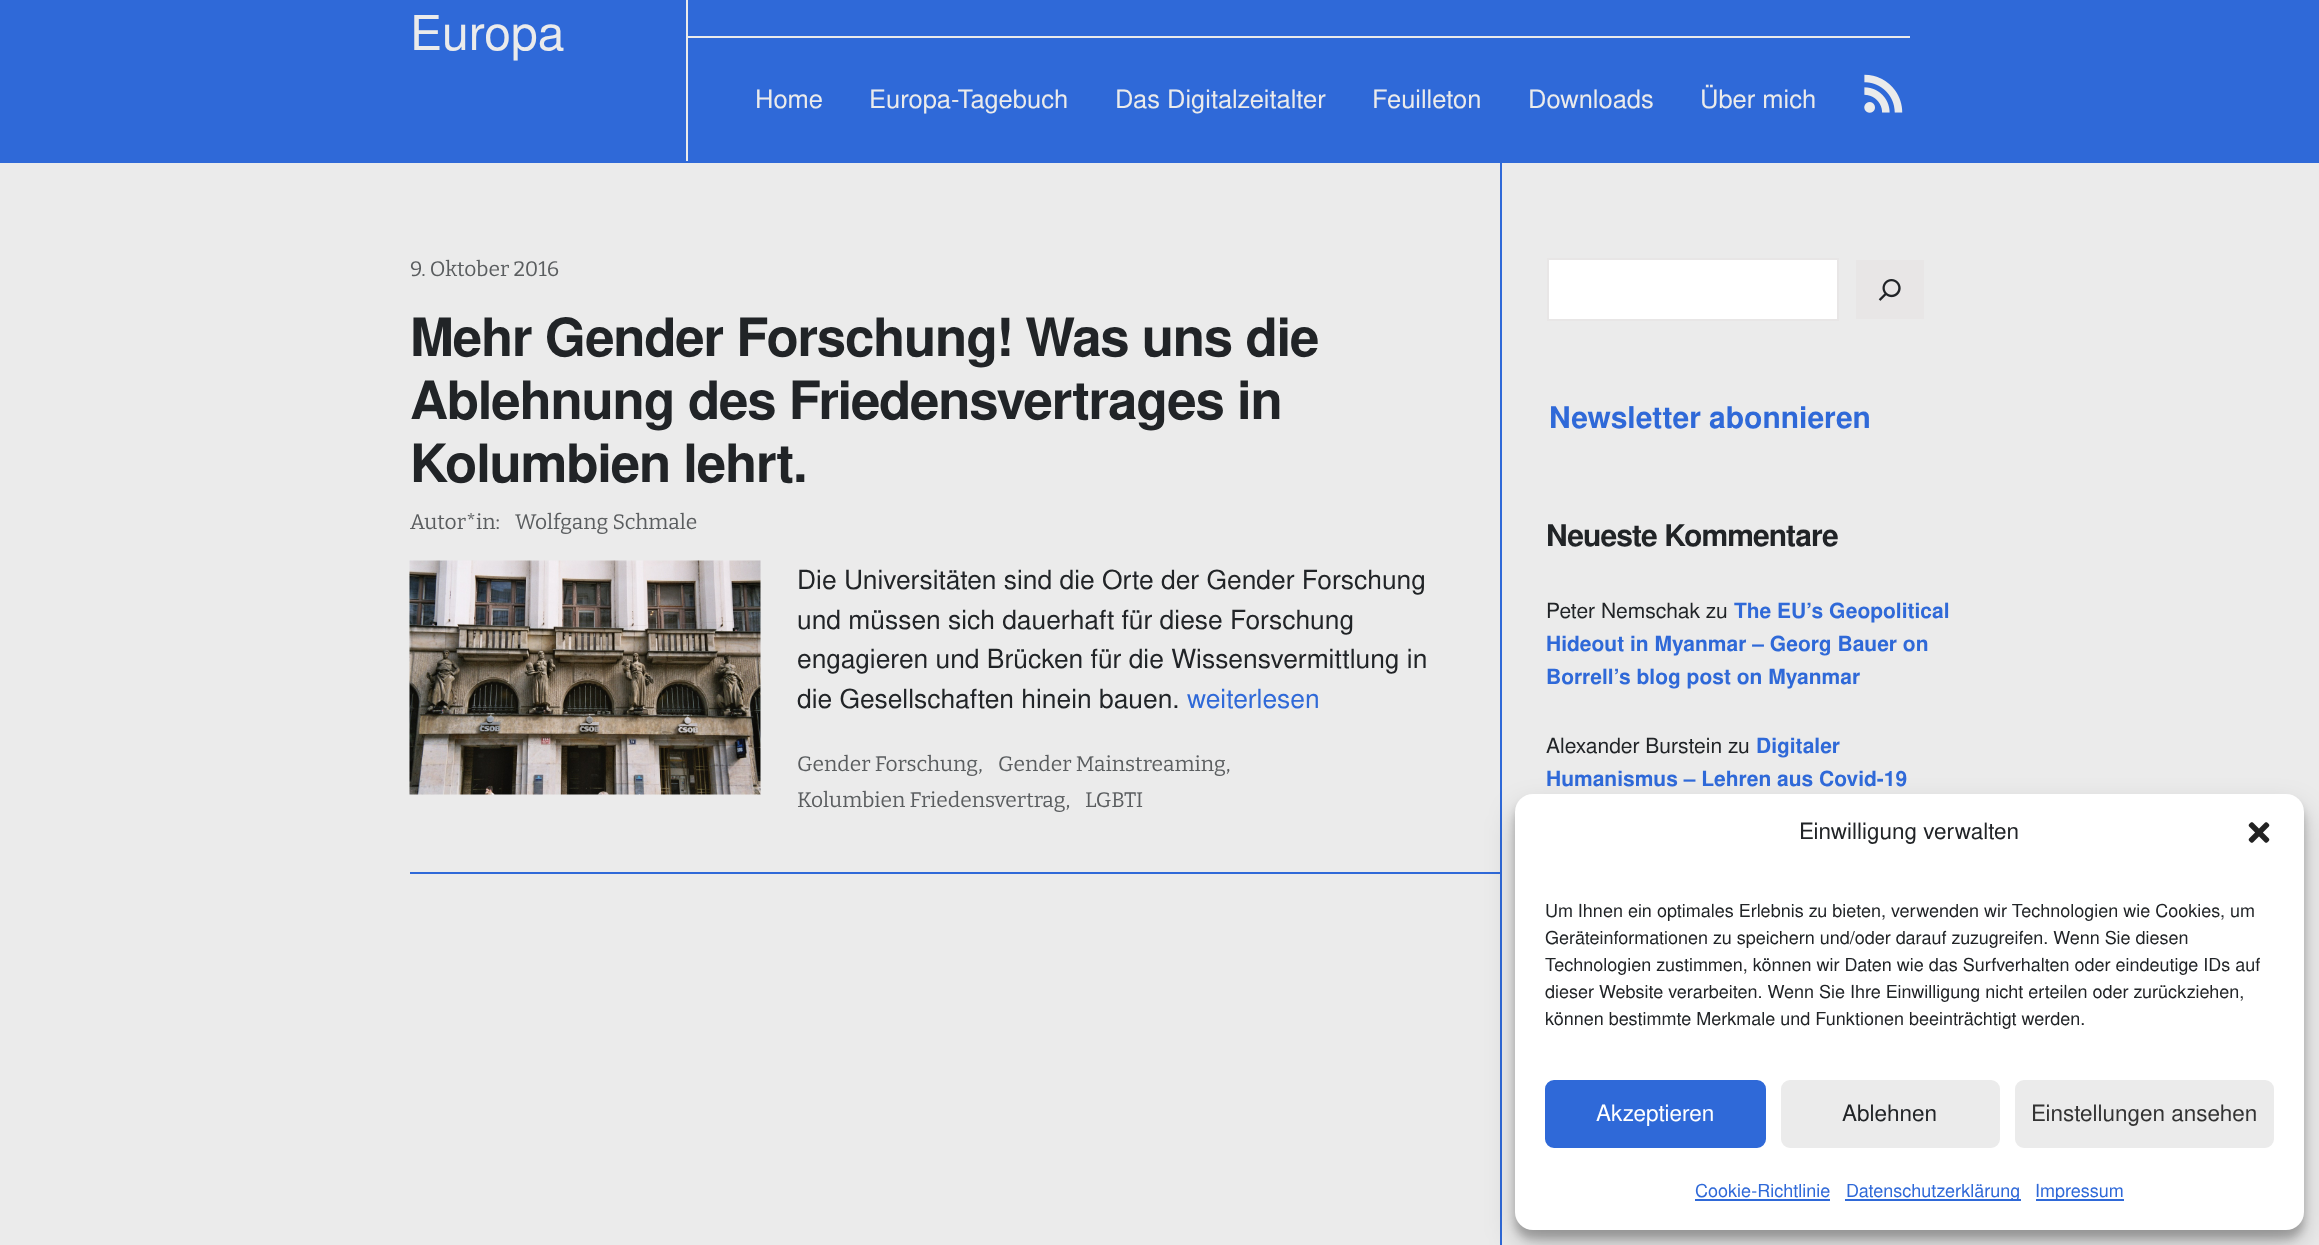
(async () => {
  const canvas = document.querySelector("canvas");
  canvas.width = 2319;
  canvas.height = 1245;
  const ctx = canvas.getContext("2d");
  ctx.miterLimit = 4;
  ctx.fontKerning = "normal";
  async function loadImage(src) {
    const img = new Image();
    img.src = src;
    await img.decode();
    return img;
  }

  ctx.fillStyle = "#ebebeb";
  ctx.fillRect(0, 0, 2319, 1245);
  for (const [x, y, w, h, color] of [
    [0, 0, 2319, 163, "#2f69d8"],
    [686, 0, 2, 161, "#ebebeb"],
    [687, 36, 1223, 2, "#ebebeb"],
  ]) {
    ctx.fillStyle = color;
    ctx.fillRect(x, y, w, h);
  }
  ctx.drawImage(await loadImage("img/1.png"), 1864, 74, 39, 39);
  ctx.fillStyle = "#2f69d8";
  ctx.fillRect(1500, 162, 2, 1083);
  ctx.drawImage(await loadImage("img/2.png"), 409, 560, 352, 235);
  ctx.fillRect(410, 872, 1090, 2);
  ctx.fillStyle = "#ffffff";
  ctx.beginPath();
  ctx.rect(1548, 259, 290, 61);
  ctx.fill();
  ctx.strokeStyle = "#e8e6e6";
  ctx.lineWidth = 2;
  ctx.stroke();
  ctx.fillStyle = "#e8e6e6";
  ctx.fillRect(1856, 260, 68, 59);
  ctx.drawImage(await loadImage("img/3.png"), 1878, 279, 23, 22);
  ctx.fillStyle = "rgba(0, 0, 0, 0.23)";
  ctx.filter = "blur(4.5px)";
  ctx.beginPath();
  ctx.roundRect(1515, 803, 789, 436, 18);
  ctx.fill();
  ctx.filter = "none";
  ctx.fillStyle = "rgba(0, 0, 0, 0.19)";
  ctx.filter = "blur(15px)";
  ctx.beginPath();
  ctx.roundRect(1515, 809, 789, 436, 18);
  ctx.fill();
  ctx.filter = "none";
  ctx.fillStyle = "#ffffff";
  ctx.beginPath();
  ctx.roundRect(1515, 794, 789, 436, 18);
  ctx.fill();
  ctx.drawImage(await loadImage("img/4.png"), 2248, 822, 22, 21);
  ctx.fillStyle = "#2f69d8";
  ctx.beginPath();
  ctx.roundRect(1546, 1081, 219, 66, 8);
  ctx.fill();
  ctx.strokeStyle = "#2f69d8";
  ctx.stroke();
  ctx.fillStyle = "#ebebeb";
  ctx.beginPath();
  ctx.roundRect(1782, 1081, 217, 66, 8);
  ctx.fill();
  ctx.strokeStyle = "#ebebeb";
  ctx.stroke();
  ctx.beginPath();
  ctx.roundRect(2016, 1081, 257, 66, 8);
  ctx.fill();
  ctx.stroke();
  for (const [x, y, w, h, color] of [
    [1695, 1199, 135, 2, "#2f69d8"],
    [1845, 1199, 176, 2, "#2f69d8"],
    [2036, 1199, 88, 2, "#2f69d8"],
  ]) {
    ctx.fillStyle = color;
    ctx.fillRect(x, y, w, h);
  }
  ctx.font = "48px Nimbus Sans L";
  ctx.fillStyle = "#ebebeb";
  ctx.fillText("Europa", 410, 50);
  ctx.font = "25.5px Nimbus Sans L";
  for (const [text, x, y] of [
    ["Home", 755, 108],
    ["Europa-Tagebuch", 869, 108],
    ["Das Digitalzeitalter", 1115, 108],
    ["Feuilleton", 1372, 108],
    ["Downloads", 1528, 108],
    ["Über mich", 1700, 108],
  ]) {
    ctx.fillText(text, x, y);
  }
  ctx.font = "100 21px Bitter";
  ctx.fillStyle = "#5a5d5f";
  ctx.fillText("9. Oktober 2016", 410, 276);
  ctx.letterSpacing = "-1.2px";
  ctx.font = "bold 52.75px Nimbus Sans L";
  ctx.fillStyle = "#212427";
  for (const [text, x, y] of [
    ["Mehr Gender Forschung! Was uns die", 410, 356],
    ["Ablehnung des Friedensvertrages in", 410, 419],
    ["Kolumbien lehrt.", 410, 482],
  ]) {
    ctx.fillText(text, x, y);
  }
  ctx.letterSpacing = "0px";
  ctx.font = "100 21px Bitter";
  ctx.fillStyle = "#5a5d5f";
  ctx.fillText("Autor*in:", 410, 529);
  ctx.fillText("Wolfgang Schmale", 515, 529);
  ctx.font = "26.4px Nimbus Sans L";
  ctx.fillStyle = "#212427";
  for (const [text, x, y] of [
    ["Die Universitäten sind die Orte der Gender Forschung", 797, 589],
    ["und müssen sich dauerhaft für diese Forschung", 797, 629],
    ["engagieren und Brücken für die Wissensvermittlung in", 797, 668],
    ["die Gesellschaften hinein bauen.", 797, 708],
  ]) {
    ctx.fillText(text, x, y);
  }
  ctx.fillStyle = "#2f69d8";
  ctx.fillText("weiterlesen", 1187, 708);
  ctx.font = "100 21px Bitter";
  ctx.fillStyle = "#5a5d5f";
  for (const [text, x, y] of [
    ["Gender Forschung,", 797, 771],
    ["Gender Mainstreaming,", 998, 771],
    ["Kolumbien Friedensvertrag,", 797, 807],
    ["LGBTI", 1085, 807],
  ]) {
    ctx.fillText(text, x, y);
  }
  ctx.font = "bold 30px Nimbus Sans L";
  ctx.fillStyle = "#2f69d8";
  ctx.fillText("Newsletter abonnieren", 1549, 428);
  ctx.letterSpacing = "-0.9px";
  ctx.fillStyle = "#212427";
  ctx.fillText("Neueste Kommentare", 1546, 546);
  ctx.letterSpacing = "0px";
  ctx.font = "21px Nimbus Sans L";
  ctx.fillText("Peter Nemschak zu", 1546, 618);
  ctx.font = "bold 21px Nimbus Sans L";
  ctx.fillStyle = "#2f69d8";
  for (const [text, x, y] of [
    ["The EU’s Geopolitical", 1734, 618],
    ["Hideout in Myanmar – Georg Bauer on", 1546, 651],
    ["Borrell’s blog post on Myanmar", 1546, 684],
  ]) {
    ctx.fillText(text, x, y);
  }
  ctx.font = "21px Nimbus Sans L";
  ctx.fillStyle = "#212427";
  ctx.fillText("Alexander Burstein zu", 1546, 753);
  ctx.font = "bold 21px Nimbus Sans L";
  ctx.fillStyle = "#2f69d8";
  ctx.fillText("Digitaler", 1756, 753);
  ctx.fillText("Humanismus – Lehren aus Covid-19", 1546, 786);
  ctx.font = "22.5px Nimbus Sans L";
  ctx.fillStyle = "#212427";
  ctx.fillText("Einwilligung verwalten", 1799, 839);
  ctx.font = "18px Nimbus Sans L";
  for (const [text, x, y] of [
    ["Um Ihnen ein optimales Erlebnis zu bieten, verwenden wir Technologien wie Cookies, um", 1545, 917],
    ["Geräteinformationen zu speichern und/oder darauf zuzugreifen. Wenn Sie diesen", 1545, 944],
    ["Technologien zustimmen, können wir Daten wie das Surfverhalten oder eindeutige IDs auf", 1545, 971],
    ["dieser Website verarbeiten. Wenn Sie Ihre Einwilligung nicht erteilen oder zurückziehen,", 1545, 998],
    ["können bestimmte Merkmale und Funktionen beeinträchtigt werden.", 1545, 1025],
  ]) {
    ctx.fillText(text, x, y);
  }
  ctx.font = "22.5px Nimbus Sans L";
  ctx.fillStyle = "#ffffff";
  ctx.fillText("Akzeptieren", 1596, 1121);
  ctx.fillStyle = "#212427";
  ctx.fillText("Ablehnen", 1842, 1121);
  ctx.fillStyle = "#333333";
  ctx.fillText("Einstellungen ansehen", 2031, 1121);
  ctx.font = "18px Nimbus Sans L";
  ctx.fillStyle = "#2f69d8";
  for (const [text, x, y] of [
    ["Cookie-Richtlinie", 1695, 1197],
    ["Datenschutzerklärung", 1846, 1197],
    ["Impressum", 2035, 1197],
  ]) {
    ctx.fillText(text, x, y);
  }
})();
